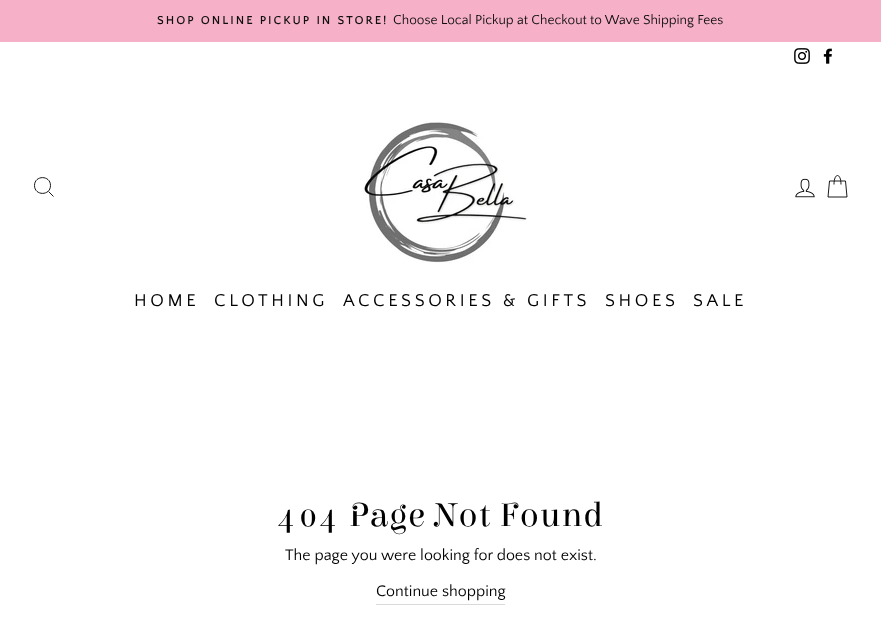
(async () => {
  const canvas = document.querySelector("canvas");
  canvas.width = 881;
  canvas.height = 628;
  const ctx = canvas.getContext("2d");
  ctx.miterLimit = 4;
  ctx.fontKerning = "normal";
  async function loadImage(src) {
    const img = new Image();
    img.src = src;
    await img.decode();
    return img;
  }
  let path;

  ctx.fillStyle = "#ffffff";
  ctx.fillRect(0, 0, 881, 628);
  ctx.fillStyle = "#f6b1c8";
  ctx.fillRect(0, 0, 881, 42);
  ctx.drawImage(await loadImage("img/1.png"), 794, 48, 16, 16);
  ctx.drawImage(await loadImage("img/2.png"), 823, 48, 9, 16);
  path = new Path2D("M50.5 185.5C50.5 196 34.5 196 34.5 185.5C34.5 175 50.5 175 50.5 185.5ZM53.5 196.5L48.5 191.5");
  ctx.strokeStyle = "#000000";
  ctx.lineWidth = 0.9;
  ctx.stroke(path);
  ctx.drawImage(await loadImage("img/3.png"), 363, 121, 164, 142);
  ctx.drawImage(await loadImage("img/4.png"), 795, 178, 20, 20);
  path = new Path2D("M834 184.5C834 172.5 841 172.5 841 184.5M829.5 181H845.5L847 197H828Z");
  ctx.stroke(path);
  ctx.fillStyle = "#d9d9d9";
  ctx.fillRect(376, 604, 129, 1);
  ctx.letterSpacing = "2.3px";
  ctx.font = "bold 11.6px Quattrocento Sans";
  ctx.fillStyle = "#0f0f0f";
  ctx.fillText("SHOP ONLINE PICKUP IN STORE!", 157, 24);
  ctx.letterSpacing = "0px";
  ctx.font = "13.6px Quattrocento Sans";
  ctx.fillText("Choose Local Pickup at Checkout to Wave Shipping Fees", 393, 24);
  ctx.letterSpacing = "3.6px";
  ctx.font = "18px Quattrocento Sans";
  ctx.fillStyle = "#000000";
  for (const [text, x, y] of [
    ["HOME", 134, 306],
    ["CLOTHING", 214, 306],
    ["ACCESSORIES & GIFTS", 343, 306],
    ["SHOES", 605, 306],
    ["SALE", 693, 306],
  ]) {
    ctx.fillText(text, x, y);
  }
  ctx.letterSpacing = "0.9px";
  ctx.font = "35px Elsie Swash Caps";
  ctx.fillText("404 Page Not Found", 277, 526);
  ctx.letterSpacing = "0px";
  ctx.font = "16px Quattrocento Sans";
  ctx.fillText("The page you were looking for does not exist.", 285, 560);
  ctx.fillText("Continue shopping", 376, 596);
})();
